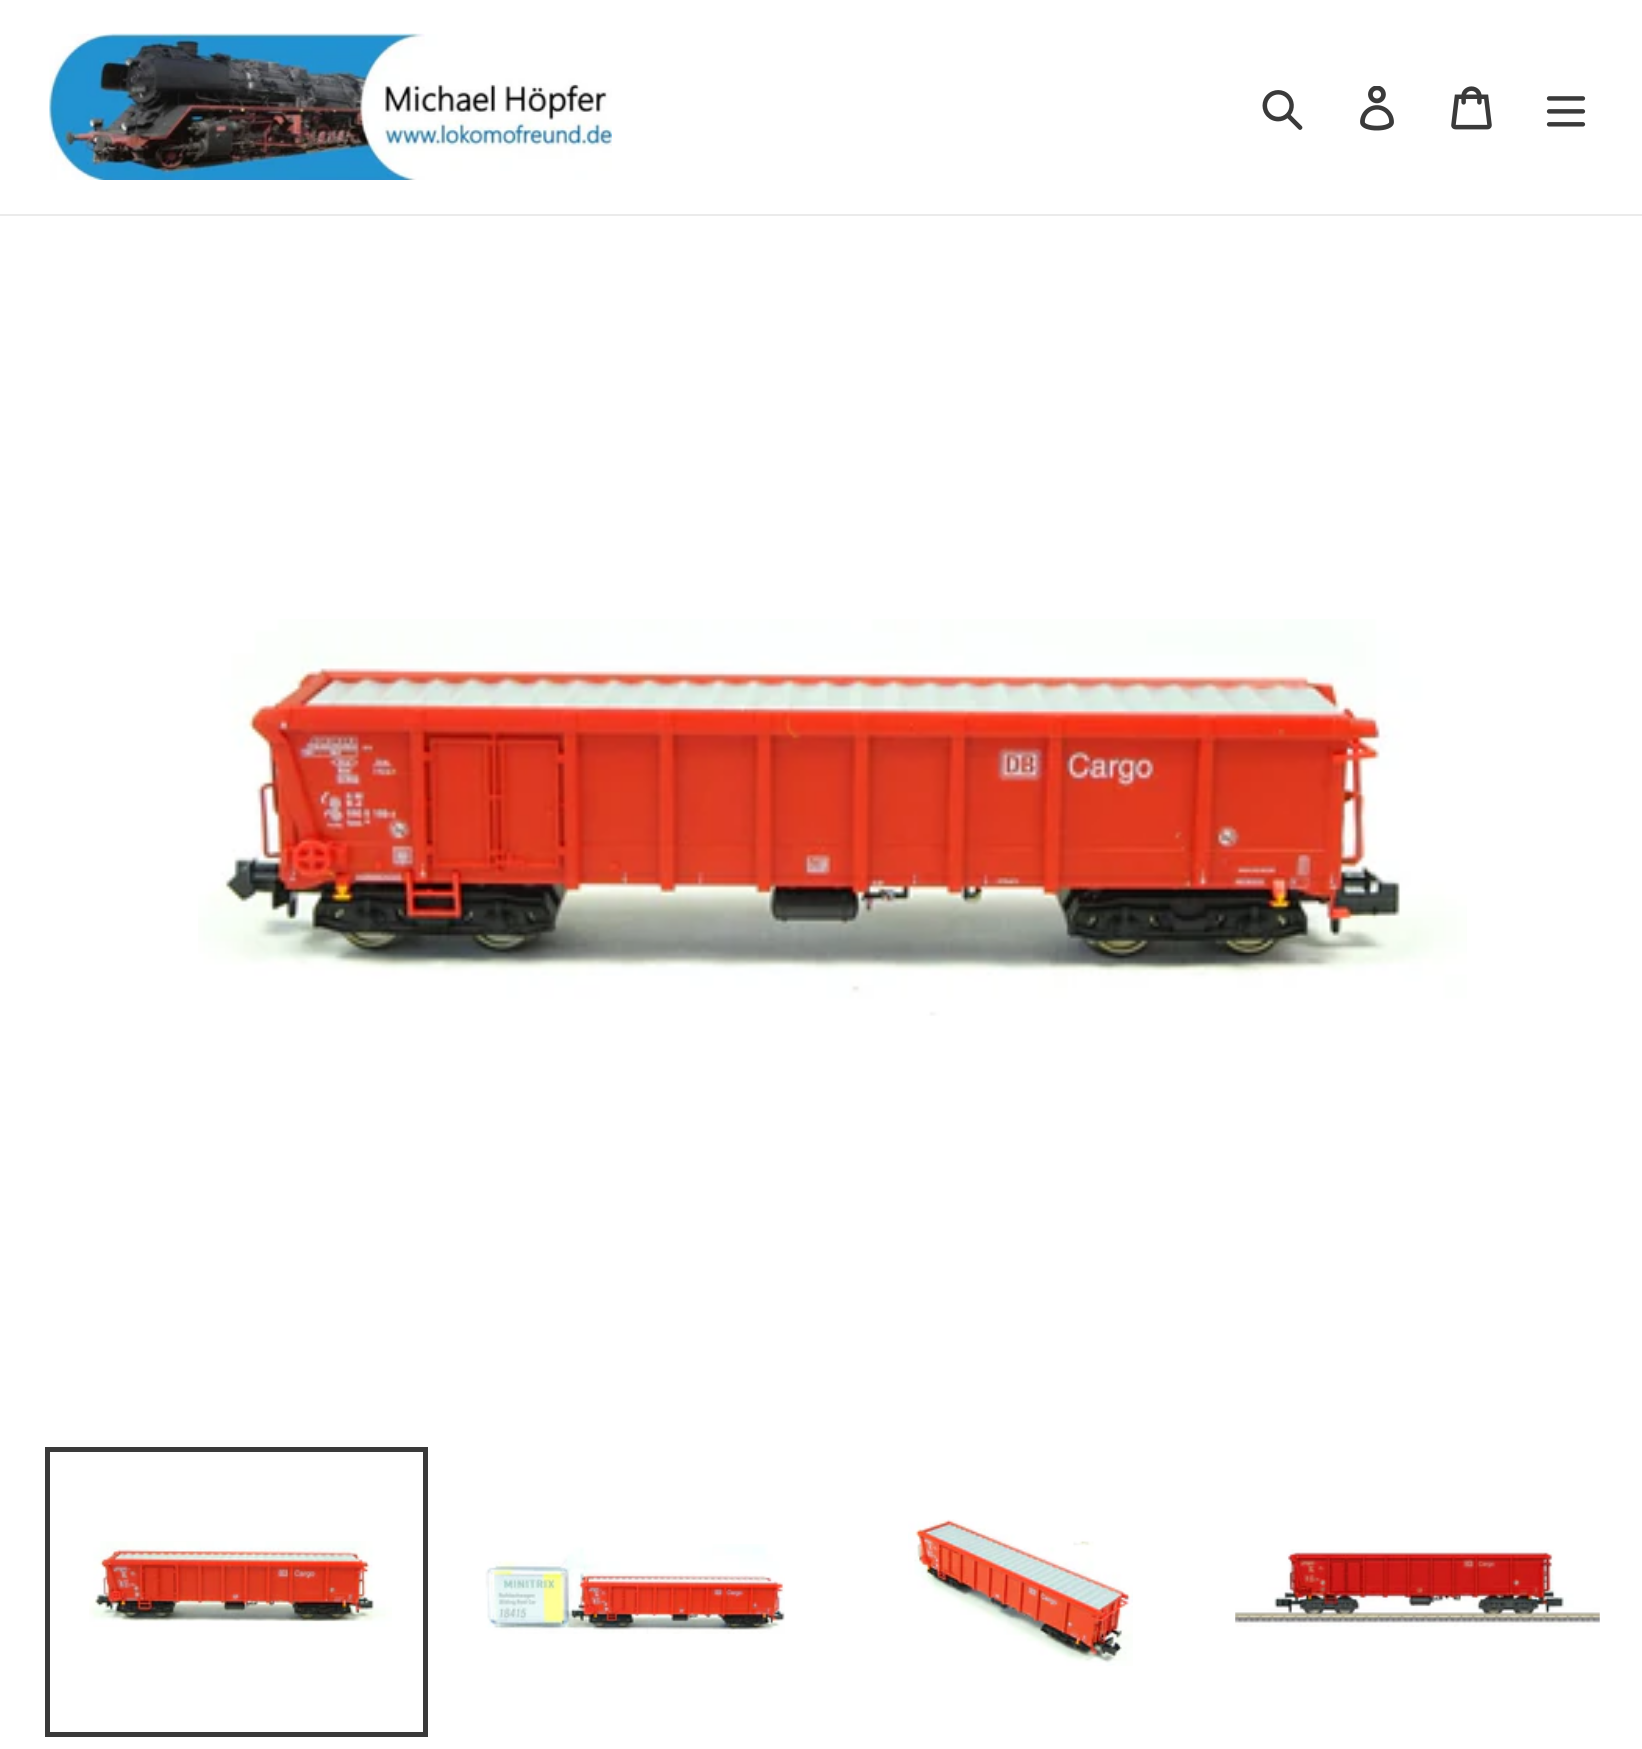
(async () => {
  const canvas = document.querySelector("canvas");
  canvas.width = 1642;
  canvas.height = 1749;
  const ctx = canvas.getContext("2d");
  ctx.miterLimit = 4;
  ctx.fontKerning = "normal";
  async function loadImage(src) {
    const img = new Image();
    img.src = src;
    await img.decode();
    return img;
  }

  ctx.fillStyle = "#ffffff";
  ctx.fillRect(0, 0, 1642, 1749);
  ctx.fillStyle = "#ebebeb";
  ctx.fillRect(0, 214, 1642, 2);
  ctx.drawImage(await loadImage("img/1.png"), 49, 33, 563, 147);
  ctx.drawImage(await loadImage("img/2.png"), 1262, 90, 41, 40);
  ctx.drawImage(await loadImage("img/3.png"), 1360, 86, 34, 45);
  ctx.drawImage(await loadImage("img/4.png"), 1451, 86, 41, 44);
  ctx.drawImage(await loadImage("img/5.png"), 1546, 96, 40, 31);
  ctx.drawImage(await loadImage("img/6.png"), 198, 619, 1269, 397);
  ctx.strokeStyle = "#3a3a3a";
  ctx.lineWidth = 5;
  ctx.strokeRect(47.5, 1449.5, 378, 285);
  ctx.drawImage(await loadImage("img/7.png"), 89, 1541, 303, 86);
  ctx.drawImage(await loadImage("img/8.png"), 485, 1544, 300, 90);
  ctx.drawImage(await loadImage("img/9.png"), 908, 1519, 225, 147);
  ctx.drawImage(await loadImage("img/10.png"), 1235, 1549, 365, 78);
})();
